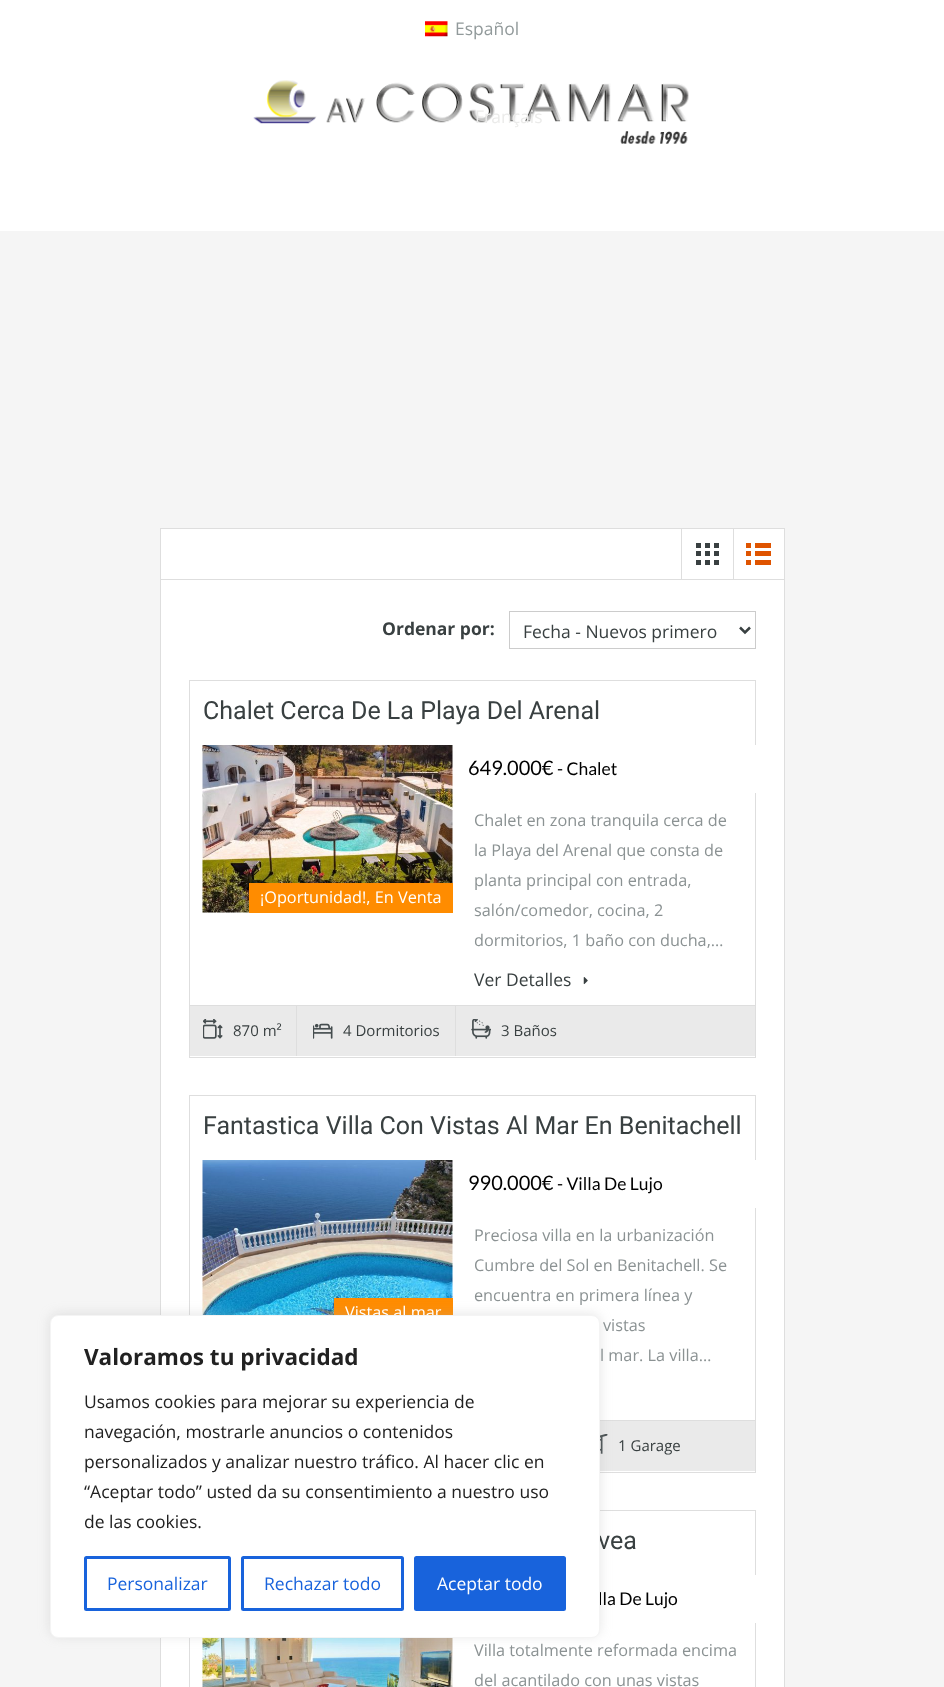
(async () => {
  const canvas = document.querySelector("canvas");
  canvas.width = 944;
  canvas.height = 1687;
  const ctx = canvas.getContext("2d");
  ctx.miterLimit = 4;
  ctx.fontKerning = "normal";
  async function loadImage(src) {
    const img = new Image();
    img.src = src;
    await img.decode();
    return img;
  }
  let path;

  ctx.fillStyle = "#f5f5f5";
  ctx.fillRect(0, 0, 944, 1687);
  ctx.fillStyle = "#ffffff";
  ctx.fillRect(0, 0, 944, 231);
  ctx.drawImage(await loadImage("img/1.png"), 425, 21, 23, 16);
  ctx.drawImage(await loadImage("img/2.png"), 253, 80, 436, 64);
  for (const [x, y, w, h, color] of [
    [784, 528, 1, 1159, "#dedede"],
    [160, 528, 1, 1159, "#dedede"],
    [161, 529, 623, 1158, "#ffffff"],
    [161, 528, 623, 1, "#dedede"],
    [161, 579, 623, 1, "#dedede"],
    [681, 529, 1, 50, "#dedede"],
  ]) {
    ctx.fillStyle = color;
    ctx.fillRect(x, y, w, h);
  }
  ctx.drawImage(await loadImage("img/3.png"), 696, 543, 23, 22);
  ctx.fillRect(733, 529, 1, 50);
  ctx.drawImage(await loadImage("img/4.png"), 746, 543, 25, 22);
  ctx.strokeStyle = "#cccccc";
  ctx.strokeRect(509.5, 611.5, 246, 37);
  path = new Path2D("M740 627.5L745 632.5L750 627.5");
  ctx.strokeStyle = "#394041";
  ctx.lineWidth = 2.5;
  ctx.stroke(path);
  ctx.strokeStyle = "#dedede";
  ctx.lineWidth = 1;
  ctx.strokeRect(189.5, 680.5, 566, 377);
  ctx.drawImage(await loadImage("img/5.png"), 202, 745, 251, 168);
  ctx.fillStyle = "#ff8c00";
  ctx.fillRect(249, 883, 204, 30);
  ctx.fillStyle = "#ffffff";
  ctx.fillRect(755, 745, 1, 48);
  ctx.drawImage(await loadImage("img/6.png"), 583, 977, 5, 8);
  for (const [x, y, w, h, color] of [
    [190, 1006, 565, 50, "#eaeaea"],
    [190, 1005, 565, 1, "#dedede"],
    [296, 1006, 1, 50, "#dedede"],
  ]) {
    ctx.fillStyle = color;
    ctx.fillRect(x, y, w, h);
  }
  ctx.drawImage(await loadImage("img/7.png"), 203, 1019, 20, 20);
  ctx.fillRect(455, 1006, 1, 50);
  ctx.drawImage(await loadImage("img/8.png"), 313, 1023, 20, 16);
  ctx.drawImage(await loadImage("img/9.png"), 471, 1019, 20, 20);
  ctx.strokeRect(189.5, 1095.5, 566, 377);
  ctx.drawImage(await loadImage("img/10.png"), 202, 1160, 251, 155);
  for (const [x, y, w, h, color] of [
    [334, 1298, 119, 17, "#ff8c00"],
    [755, 1160, 1, 48, "#ffffff"],
    [600, 1421, 155, 50, "#eaeaea"],
    [600, 1420, 155, 1, "#dedede"],
  ]) {
    ctx.fillStyle = color;
    ctx.fillRect(x, y, w, h);
  }
  ctx.drawImage(await loadImage("img/11.png"), 600, 1434, 8, 20);
  ctx.strokeRect(189.5, 1510.5, 566, 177);
  ctx.drawImage(await loadImage("img/12.png"), 202, 1638, 251, 49);
  ctx.fillStyle = "#ffffff";
  ctx.fillRect(755, 1575, 1, 48);
  ctx.fillStyle = "rgba(172, 171, 171, 0.3)";
  ctx.filter = "blur(6px)";
  ctx.beginPath();
  ctx.roundRect(50, 1314, 550, 322, 8);
  ctx.fill();
  ctx.filter = "none";
  ctx.font = "17.5px Open Sans";
  ctx.fillStyle = "#929a9b";
  ctx.fillText("Español", 455, 35);
  ctx.fillStyle = "#ebebea";
  ctx.fillText("Français", 475, 123);
  ctx.font = "bold 17.5px Open Sans";
  ctx.fillStyle = "#394041";
  ctx.fillText("Ordenar por:", 382, 635);
  ctx.font = "17.5px Open Sans";
  ctx.fillText("Fecha - Nuevos primero", 523, 638);
  ctx.font = "25px Roboto";
  ctx.fillText("Chalet Cerca De La Playa Del Arenal", 203, 719);
  ctx.font = "16.25px Open Sans";
  ctx.fillStyle = "#ffffff";
  ctx.fillText("¡Oportunidad!, En Venta", 260, 903);
  ctx.font = "20px Lato";
  ctx.fillStyle = "#000000";
  ctx.fillText("649.000€", 468, 775);
  ctx.font = "17.5px Lato";
  ctx.fillText("- Chalet", 557, 775);
  ctx.font = "16.25px Open Sans";
  ctx.fillStyle = "#8b9293";
  for (const [text, x, y] of [
    ["Chalet en zona tranquila cerca de", 474, 826],
    ["la Playa del Arenal que consta de", 474, 856],
    ["planta principal con entrada,", 474, 886],
    ["salón/comedor, cocina, 2", 474, 916],
    ["dormitorios, 1 baño con ducha,…", 474, 946],
  ]) {
    ctx.fillText(text, x, y);
  }
  ctx.font = "17.5px Open Sans";
  ctx.fillStyle = "#394041";
  ctx.fillText("Ver Detalles", 474, 986);
  ctx.font = "15px Open Sans";
  for (const [text, x, y] of [
    ["870 m²", 233, 1036],
    ["4 Dormitorios", 343, 1036],
    ["3 Baños", 501, 1036],
  ]) {
    ctx.fillText(text, x, y);
  }
  ctx.font = "25px Roboto";
  ctx.fillText("Fantastica Villa Con Vistas Al Mar En Benitachell", 203, 1134);
  ctx.font = "16.25px Open Sans";
  ctx.fillStyle = "#ffffff";
  ctx.fillText("Vistas al mar", 345, 1318);
  ctx.font = "20px Lato";
  ctx.fillStyle = "#000000";
  ctx.fillText("990.000€", 468, 1190);
  ctx.font = "17.5px Lato";
  ctx.fillText("- Villa De Lujo", 557, 1190);
  ctx.font = "16.25px Open Sans";
  ctx.fillStyle = "#8b9293";
  for (const [text, x, y] of [
    ["Preciosa villa en la urbanización", 474, 1241],
    ["Cumbre del Sol en Benitachell. Se", 474, 1271],
    ["encuentra en primera línea y", 474, 1301],
    ["vistas", 603, 1331],
    ["l mar. La villa…", 600, 1361],
  ]) {
    ctx.fillText(text, x, y);
  }
  ctx.font = "15px Open Sans";
  ctx.fillStyle = "#394041";
  ctx.fillText("1 Garage", 618, 1451);
  ctx.font = "25px Roboto";
  ctx.fillText("vea", 598, 1549);
  ctx.font = "17.5px Lato";
  ctx.fillStyle = "#000000";
  ctx.fillText("lla De Lujo", 598, 1605);
  ctx.font = "16.25px Open Sans";
  ctx.fillStyle = "#8b9293";
  ctx.fillText("Villa totalmente reformada encima", 474, 1656);
  ctx.fillText("del acantilado con unas vistas", 474, 1686);
  ctx.fillStyle = "#ffffff";
  ctx.beginPath();
  ctx.roundRect(50.5, 1315.5, 549, 322, 7.5);
  ctx.fill();
  ctx.strokeStyle = "#f4f4f4";
  ctx.stroke();
  ctx.font = "bold 22.5px Open Sans";
  ctx.fillStyle = "#212121";
  ctx.fillText("Valoramos tu privacidad", 84, 1365);
  ctx.font = "17.5px Open Sans";
  for (const [text, x, y] of [
    ["Usamos cookies para mejorar su experiencia de", 84, 1408],
    ["navegación, mostrarle anuncios o contenidos", 84, 1438],
    ["personalizados y analizar nuestro tráfico. Al hacer clic en", 84, 1468],
    ["“Aceptar todo” usted da su consentimiento a nuestro uso", 84, 1498],
    ["de las cookies.", 84, 1528],
  ]) {
    ctx.fillText(text, x, y);
  }
  ctx.beginPath();
  ctx.roundRect(85.5, 1557.5, 144, 52, 1);
  ctx.strokeStyle = "#1863dc";
  ctx.lineWidth = 3;
  ctx.stroke();
  ctx.fillStyle = "#1863dc";
  ctx.fillText("Personalizar", 107, 1590);
  ctx.beginPath();
  ctx.roundRect(242.5, 1557.5, 160, 52, 1);
  ctx.stroke();
  ctx.fillText("Rechazar todo", 264, 1590);
  ctx.beginPath();
  ctx.roundRect(415.5, 1557.5, 149, 52, 1);
  ctx.fill();
  ctx.stroke();
  ctx.fillStyle = "#ffffff";
  ctx.fillText("Aceptar todo", 437, 1590);
})();
